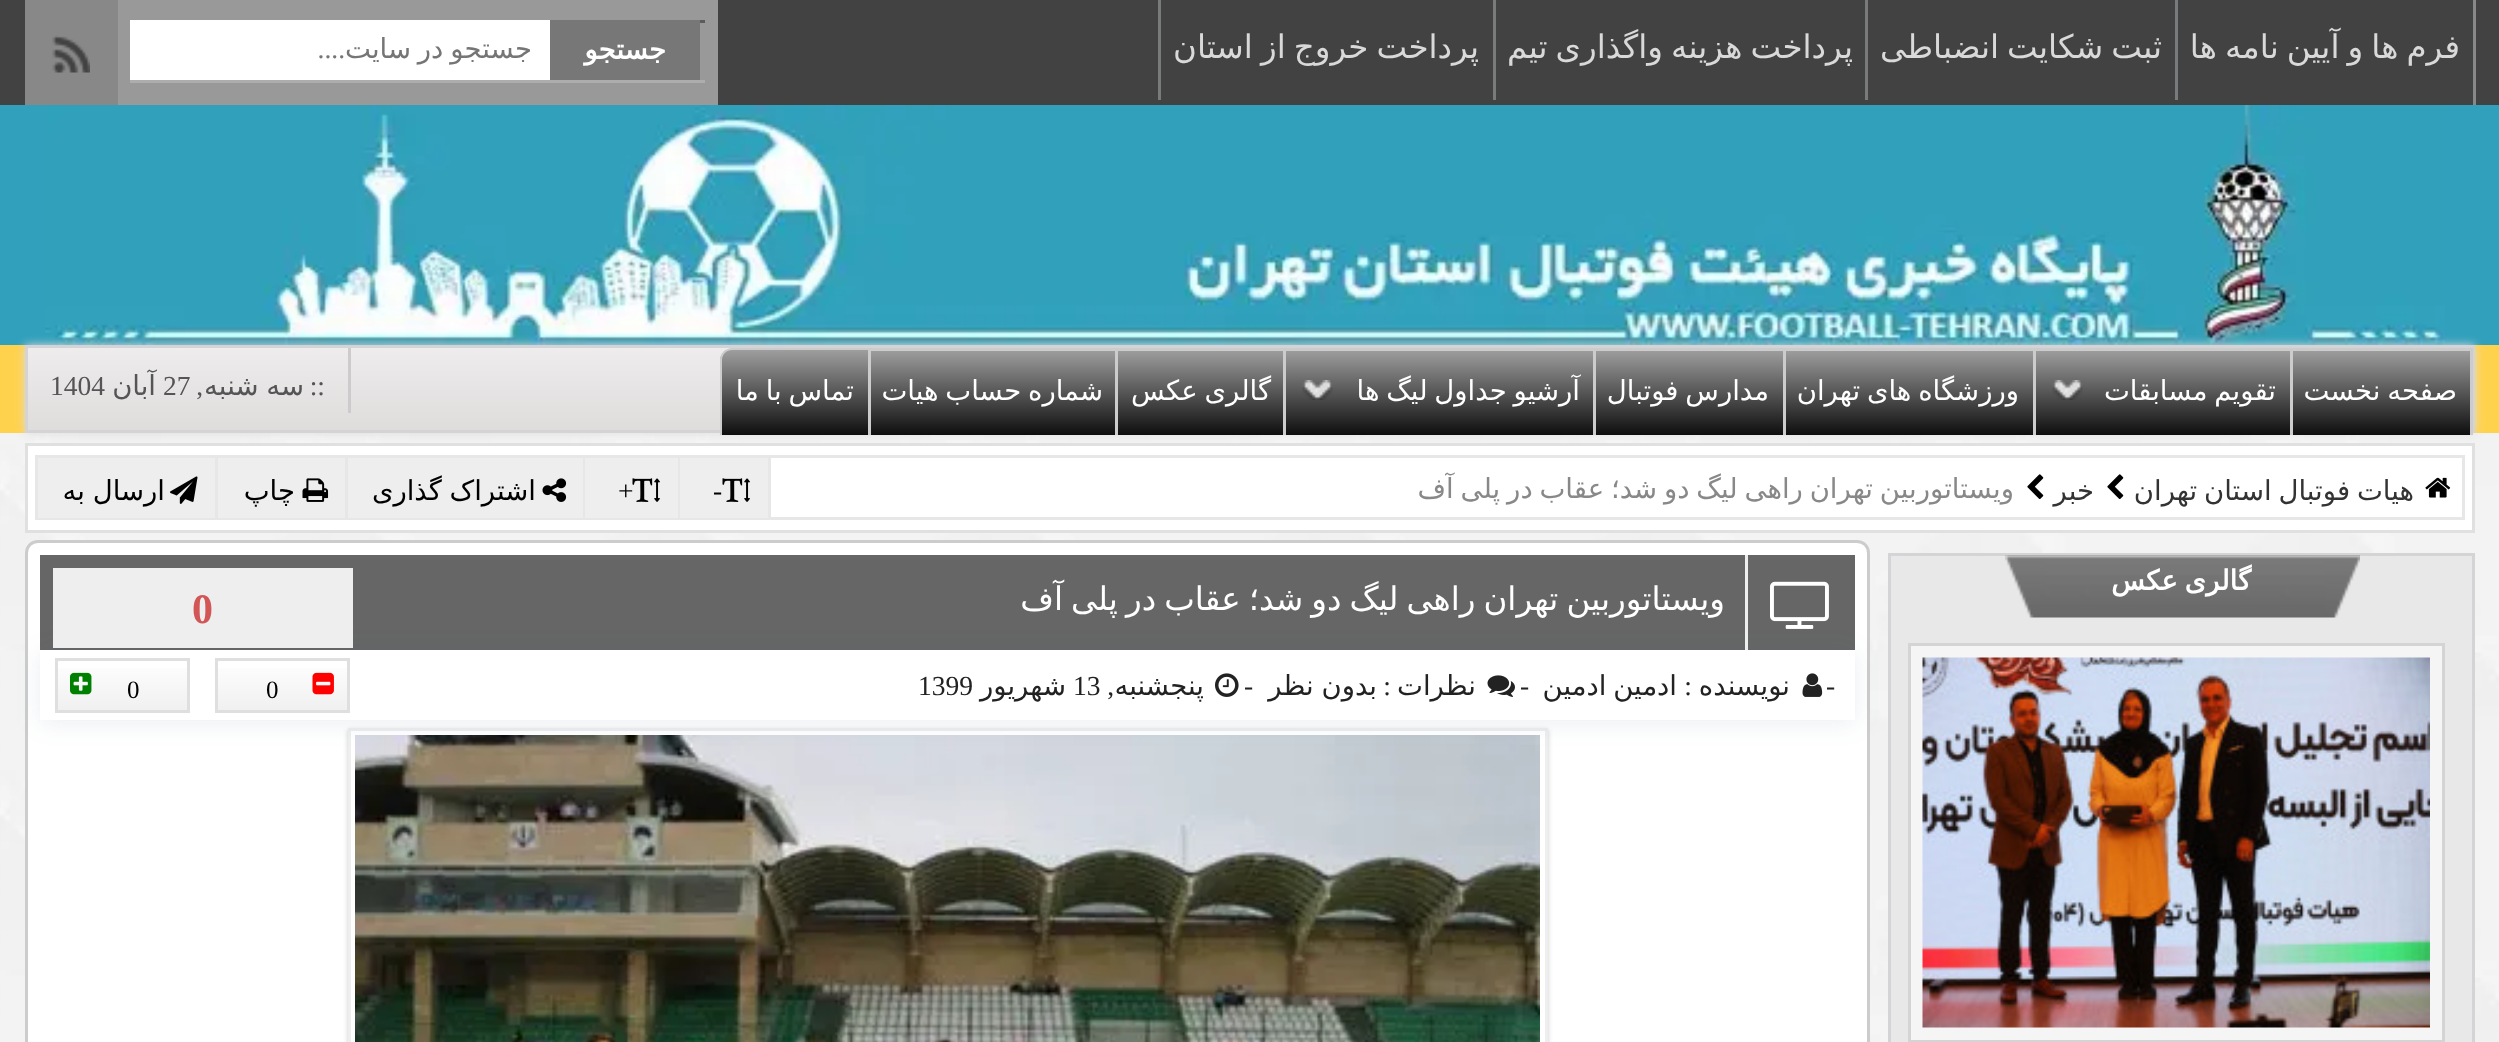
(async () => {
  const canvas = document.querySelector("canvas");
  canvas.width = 2499;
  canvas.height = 1042;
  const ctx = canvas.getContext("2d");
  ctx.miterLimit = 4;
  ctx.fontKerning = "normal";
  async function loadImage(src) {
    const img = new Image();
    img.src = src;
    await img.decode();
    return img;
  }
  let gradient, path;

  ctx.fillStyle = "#ffffff";
  ctx.fillRect(0, 0, 2499, 1042);
  ctx.drawImage(await loadImage("img/1.png"), 0, 433, 2499, 609);
  for (const [x, y, w, h, color] of [
    [0, 0, 2499, 105, "#424242"],
    [2473, 0, 3, 105, "#868889"],
    [2175, 0, 3, 100, "#787a7b"],
    [1865, 0, 3, 100, "#787a7b"],
    [1493, 0, 3, 100, "#787a7b"],
    [1158, 0, 3, 100, "#787a7b"],
    [118, 0, 600, 105, "#999999"],
    [130, 80, 575, 3, "#adadad"],
    [700, 20, 5, 3, "#5c5c5c"],
    [550, 20, 150, 60, "#777777"],
    [130, 20, 420, 60, "#ffffff"],
    [25, 0, 93, 105, "#888888"],
  ]) {
    ctx.fillStyle = color;
    ctx.fillRect(x, y, w, h);
  }
  ctx.drawImage(await loadImage("img/2.png"), 52, 35, 38, 38);
  ctx.fillStyle = "#31a0bc";
  ctx.fillRect(0, 105, 2499, 240);
  ctx.drawImage(await loadImage("img/3.png"), 45, 105, 2400, 240);
  ctx.fillStyle = "#ffd24d";
  ctx.fillRect(0, 345, 2499, 88);
  ctx.fillStyle = "#dcdcdd";
  ctx.filter = "blur(5px)";
  ctx.beginPath();
  ctx.rect(25, 345, 2450, 88);
  ctx.fill();
  ctx.filter = "none";
  gradient = ctx.createLinearGradient(1250, 347, 1250, 430);
  gradient.addColorStop(0, "#eeecec");
  gradient.addColorStop(1, "#dfdcdc");
  ctx.fillStyle = gradient;
  ctx.fillRect(28, 348, 704, 82);
  ctx.strokeStyle = "#d4d4d7";
  ctx.lineWidth = 3;
  ctx.strokeRect(26.5, 346.5, 2447, 85);
  ctx.fillStyle = "#cccccc";
  ctx.fillRect(2470, 348, 3, 87);
  gradient = ctx.createLinearGradient(2381, 350, 2381, 435);
  gradient.addColorStop(0, "#9d9e9d");
  gradient.addColorStop(1, "#0e0e0e");
  ctx.fillStyle = gradient;
  ctx.fillRect(2293, 351, 177, 84);
  ctx.fillStyle = "#cccccc";
  ctx.fillRect(2290, 348, 180, 3);
  ctx.fillRect(2290, 348, 3, 87);
  gradient = ctx.createLinearGradient(2163, 350, 2163, 435);
  gradient.addColorStop(0, "#9d9e9d");
  gradient.addColorStop(1, "#0e0e0e");
  ctx.fillStyle = gradient;
  ctx.fillRect(2036, 351, 254, 84);
  ctx.fillStyle = "#cccccc";
  ctx.fillRect(1593, 348, 697, 3);
  ctx.fillRect(2033, 348, 3, 87);
  ctx.drawImage(await loadImage("img/4.png"), 2052, 380, 31, 20);
  gradient = ctx.createLinearGradient(1909, 350, 1909, 435);
  gradient.addColorStop(0, "#9d9e9d");
  gradient.addColorStop(1, "#0e0e0e");
  ctx.fillStyle = gradient;
  ctx.fillRect(1786, 351, 247, 84);
  ctx.fillStyle = "#cccccc";
  ctx.fillRect(1783, 348, 3, 87);
  gradient = ctx.createLinearGradient(1689, 350, 1689, 435);
  gradient.addColorStop(0, "#9d9e9d");
  gradient.addColorStop(1, "#0e0e0e");
  ctx.fillStyle = gradient;
  ctx.fillRect(1596, 351, 187, 84);
  ctx.fillStyle = "#cccccc";
  ctx.fillRect(1593, 348, 3, 87);
  gradient = ctx.createLinearGradient(1439, 350, 1439, 435);
  gradient.addColorStop(0, "#9d9e9d");
  gradient.addColorStop(1, "#0e0e0e");
  ctx.fillStyle = gradient;
  ctx.fillRect(1286, 351, 307, 84);
  ctx.fillStyle = "#cccccc";
  ctx.fillRect(868, 348, 725, 3);
  ctx.fillRect(1283, 348, 3, 87);
  ctx.drawImage(await loadImage("img/4.png"), 1302, 380, 31, 20);
  gradient = ctx.createLinearGradient(1200, 350, 1200, 435);
  gradient.addColorStop(0, "#9d9e9d");
  gradient.addColorStop(1, "#0e0e0e");
  ctx.fillStyle = gradient;
  ctx.fillRect(1118, 351, 165, 84);
  ctx.fillStyle = "#cccccc";
  ctx.fillRect(1115, 348, 3, 87);
  gradient = ctx.createLinearGradient(993, 350, 993, 435);
  gradient.addColorStop(0, "#9d9e9d");
  gradient.addColorStop(1, "#0e0e0e");
  ctx.fillStyle = gradient;
  ctx.fillRect(871, 351, 244, 84);
  ctx.fillStyle = "#cccccc";
  ctx.fillRect(868, 348, 3, 87);
  ctx.save();
  ctx.beginPath();
  ctx.roundRect(720, 348, 148, 87, [13, 0, 0, 0]);
  ctx.clip();
  gradient = ctx.createLinearGradient(795, 350, 795, 435);
  gradient.addColorStop(0, "#9d9e9d");
  gradient.addColorStop(1, "#0e0e0e");
  ctx.fillStyle = gradient;
  ctx.fillRect(720, 350, 148, 85);
  ctx.restore();
  path = new Path2D("M732 348H868V435H720V360C720 353 726 348 732 348ZM732 350H868V435H722V360C722 354 727 350 732 350Z");
  ctx.fill(path, "evenodd");
  ctx.fillRect(348, 348, 3, 65);
  ctx.fillStyle = "#ffffff";
  ctx.beginPath();
  ctx.rect(26.5, 444.5, 2447, 87);
  ctx.fill();
  ctx.strokeStyle = "#e0e0e0";
  ctx.stroke();
  ctx.strokeStyle = "#e7e7e7";
  ctx.strokeRect(36.5, 456.5, 2427, 62);
  ctx.drawImage(await loadImage("img/5.png"), 2425, 477, 26, 21);
  ctx.drawImage(await loadImage("img/6.png"), 2107, 474, 17, 25);
  ctx.drawImage(await loadImage("img/6.png"), 2027, 474, 17, 25);
  ctx.fillStyle = "#eeeeee";
  ctx.fillRect(680, 458, 88, 60);
  ctx.fillStyle = "#e7e7e7";
  ctx.fillRect(768, 458, 3, 60);
  ctx.drawImage(await loadImage("img/7.png"), 722, 478, 28, 24);
  ctx.fillStyle = "#eeeeee";
  ctx.fillRect(585, 458, 93, 60);
  ctx.fillStyle = "#e7e7e7";
  ctx.fillRect(678, 458, 2, 60);
  ctx.drawImage(await loadImage("img/7.png"), 632, 478, 28, 24);
  ctx.fillStyle = "#eeeeee";
  ctx.fillRect(348, 458, 235, 60);
  ctx.fillStyle = "#e7e7e7";
  ctx.fillRect(583, 458, 2, 60);
  ctx.drawImage(await loadImage("img/8.png"), 542, 478, 25, 24);
  ctx.fillStyle = "#eeeeee";
  ctx.fillRect(218, 458, 127, 60);
  ctx.fillStyle = "#e7e7e7";
  ctx.fillRect(345, 458, 3, 60);
  ctx.drawImage(await loadImage("img/9.png"), 302, 478, 27, 24);
  ctx.fillStyle = "#eeeeee";
  ctx.fillRect(38, 458, 177, 60);
  ctx.fillStyle = "#e7e7e7";
  ctx.fillRect(215, 458, 3, 60);
  ctx.drawImage(await loadImage("img/10.png"), 170, 476, 28, 28);
  ctx.fillStyle = "#e8e8e8";
  ctx.beginPath();
  ctx.rect(1889.5, 554.5, 584, 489);
  ctx.fill();
  ctx.strokeStyle = "#d4d4d7";
  ctx.stroke();
  ctx.drawImage(await loadImage("img/11.png"), 2005, 555, 355, 63);
  ctx.fillStyle = "#f5f5f5";
  ctx.beginPath();
  ctx.rect(1909.5, 644.5, 534, 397);
  ctx.fill();
  ctx.strokeStyle = "#d4d4d4";
  ctx.stroke();
  ctx.drawImage(await loadImage("img/12.png"), 1922, 657, 508, 371);
  ctx.fillStyle = "#ffffff";
  path = new Path2D("M38 541.5H1857C1863.5 541.5 1868.5 546.5 1868.5 553V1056.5H26.5V553C26.5 546.5 31.5 541.5 38 541.5Z");
  ctx.fill(path);
  ctx.strokeStyle = "#cccccc";
  ctx.stroke(path);
  ctx.fillStyle = "#666666";
  ctx.fillRect(40, 555, 1815, 95);
  ctx.save();
  path = new Path2D("M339 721H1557V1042H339ZM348 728H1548V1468H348Z");
  ctx.clip(path, "evenodd");
  ctx.fillStyle = "rgba(0, 0, 0, 0.2)";
  ctx.filter = "blur(2.5px)";
  ctx.beginPath();
  ctx.rect(348, 730, 1200, 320);
  ctx.fill();
  ctx.filter = "none";
  ctx.restore();
  ctx.strokeStyle = "#eeeeee";
  ctx.strokeRect(349.5, 729.5, 1197, 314);
  ctx.drawImage(await loadImage("img/19.png"), 355, 735, 1185, 307);
  ctx.save();
  path = new Path2D("M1 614H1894V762H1ZM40 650H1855V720H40Z");
  ctx.clip(path, "evenodd");
  ctx.fillStyle = "rgba(51, 92, 115, 0.1)";
  ctx.filter = "blur(12.5px)";
  ctx.beginPath();
  ctx.rect(40, 653, 1815, 70);
  ctx.fill();
  ctx.filter = "none";
  ctx.restore();
  ctx.drawImage(await loadImage("img/13.png"), 1770, 581, 59, 48);
  ctx.fillStyle = "#eeeeee";
  ctx.fillRect(1745, 555, 3, 95);
  ctx.fillRect(53, 568, 300, 80);
  gradient = ctx.createLinearGradient(283, 660, 283, 710);
  gradient.addColorStop(0, "#ffffff");
  gradient.addColorStop(1, "#f0f0f0");
  ctx.fillStyle = gradient;
  ctx.fillRect(218, 668, 129, 42);
  ctx.strokeStyle = "#dfdfdf";
  ctx.strokeRect(216.5, 659.5, 132, 52);
  ctx.drawImage(await loadImage("img/14.png"), 312, 672, 22, 23);
  gradient = ctx.createLinearGradient(123, 660, 123, 710);
  gradient.addColorStop(0, "#ffffff");
  gradient.addColorStop(1, "#f0f0f0");
  ctx.fillStyle = gradient;
  ctx.fillRect(58, 668, 129, 42);
  ctx.strokeRect(56.5, 659.5, 132, 52);
  ctx.drawImage(await loadImage("img/15.png"), 70, 672, 22, 23);
  ctx.drawImage(await loadImage("img/16.png"), 1802, 673, 21, 24);
  ctx.drawImage(await loadImage("img/17.png"), 1487, 675, 28, 22);
  ctx.drawImage(await loadImage("img/18.png"), 1215, 673, 24, 24);
  ctx.wordSpacing = "-2.25px";
  ctx.direction = "rtl";
  ctx.font = "32.5px DejaVu Sans";
  ctx.fillStyle = "#d9d9d9";
  for (const [text, x, y] of [
    ["فرم ها و آیین نامه ها", 2460, 58],
    ["ثبت شکایت انضباطی", 2162, 58],
    ["پرداخت هزینه واگذاری تیم", 1853, 58],
    ["پرداخت خروج از استان", 1479, 58],
  ]) {
    ctx.fillText(text, x, y);
  }
  ctx.wordSpacing = "0px";
  ctx.font = "bold 27.5px DejaVu Sans";
  ctx.fillStyle = "#ffffff";
  ctx.fillText("جستجو", 666, 59);
  ctx.save();
  ctx.beginPath();
  ctx.rect(135, 33, 398, 32);
  ctx.clip();
  ctx.wordSpacing = "-1.9px";
  ctx.font = "27.5px DejaVu Sans";
  ctx.fillStyle = "#757575";
  ctx.fillText("جستجو در سایت", 532, 58);
  ctx.restore();
  ctx.font = "27.5px Liberation Serif";
  ctx.fillStyle = "#757575";
  ctx.fillText("....", 345, 58);
  ctx.wordSpacing = "-1.9px";
  ctx.font = "27.5px DejaVu Sans";
  ctx.fillStyle = "#ffffff";
  for (const [text, x, y] of [
    ["صفحه نخست", 2457, 400],
    ["تقویم مسابقات", 2276, 400],
    ["ورزشگاه های تهران", 2019, 400],
    ["مدارس فوتبال", 1769, 400],
    ["آرشیو جداول لیگ ها", 1580, 400],
    ["گالری عکس", 1271, 400],
    ["شماره حساب هیات", 1103, 400],
    ["تماس با ما", 854, 400],
  ]) {
    ctx.fillText(text, x, y);
  }
  ctx.wordSpacing = "0px";
  ctx.font = "27.5px Liberation Serif";
  ctx.fillStyle = "#555555";
  ctx.fillText("::", 325, 395);
  ctx.wordSpacing = "-1px";
  ctx.font = "27.5px DejaVu Sans";
  ctx.fillText("سه شنبه", 304, 395);
  ctx.wordSpacing = "0px";
  ctx.font = "27.5px Liberation Serif";
  ctx.fillText(",", 203, 395);
  ctx.direction = "ltr";
  ctx.fillText("27", 163, 395);
  ctx.direction = "rtl";
  ctx.font = "27.5px DejaVu Sans";
  ctx.fillText("آبان", 156, 395);
  ctx.direction = "ltr";
  ctx.font = "27.5px Liberation Serif";
  ctx.fillText("1404", 50, 395);
  ctx.wordSpacing = "-1.9px";
  ctx.direction = "rtl";
  ctx.font = "27.5px DejaVu Sans";
  ctx.fillStyle = "#333333";
  ctx.fillText("هیات فوتبال استان تهران", 2414, 500);
  ctx.wordSpacing = "0px";
  ctx.fillText("خبر", 2094, 500);
  ctx.save();
  ctx.beginPath();
  ctx.rect(1418, 463, 597, 50);
  ctx.clip();
  ctx.wordSpacing = "-1.9px";
  ctx.fillStyle = "#888888";
  ctx.fillText("ویستاتوربین تهران راهی لیگ دو شد؛ عقاب در پلی آف", 2014, 498);
  ctx.restore();
  ctx.direction = "ltr";
  ctx.font = "27.5px Liberation Serif";
  ctx.fillStyle = "#000000";
  ctx.fillText("-", 713, 500);
  ctx.fillText("+", 618, 500);
  ctx.wordSpacing = "-1px";
  ctx.direction = "rtl";
  ctx.font = "27.5px DejaVu Sans";
  ctx.fillText("اشتراک گذاری", 536, 500);
  ctx.wordSpacing = "0px";
  ctx.fillText("چاپ", 295, 500);
  ctx.wordSpacing = "-1px";
  ctx.fillText("ارسال به", 165, 500);
  ctx.wordSpacing = "-1.9px";
  ctx.font = "bold 27.5px DejaVu Sans";
  ctx.fillStyle = "#ffffff";
  ctx.fillText("گالری عکس", 2251, 590);
  ctx.save();
  ctx.beginPath();
  ctx.rect(715, 575, 1010, 50);
  ctx.clip();
  ctx.wordSpacing = "-2.25px";
  ctx.font = "32.5px DejaVu Sans";
  ctx.fillText("ویستاتوربین تهران راهی لیگ دو شد؛ عقاب در پلی آف", 1725, 610);
  ctx.restore();
  ctx.wordSpacing = "0px";
  ctx.direction = "ltr";
  ctx.font = "bold 42px Liberation Serif";
  ctx.fillStyle = "#d35656";
  ctx.fillText("0", 192, 623);
  ctx.font = "25px Liberation Serif";
  ctx.fillStyle = "#000000";
  ctx.fillText("0", 266, 698);
  ctx.fillText("0", 127, 698);
  ctx.font = "27.5px Liberation Serif";
  ctx.fillStyle = "#222222";
  ctx.fillText("-", 1826, 695);
  ctx.direction = "rtl";
  ctx.font = "27.5px DejaVu Sans";
  ctx.fillText("نويسنده", 1790, 695);
  ctx.font = "27.5px Liberation Serif";
  ctx.fillText(":", 1692, 695);
  ctx.wordSpacing = "-1.9px";
  ctx.font = "27.5px DejaVu Sans";
  ctx.fillText("ادمین ادمین", 1677, 695);
  ctx.wordSpacing = "0px";
  ctx.direction = "ltr";
  ctx.font = "27.5px Liberation Serif";
  ctx.fillText("-", 1520, 695);
  ctx.direction = "rtl";
  ctx.font = "27.5px DejaVu Sans";
  ctx.fillText("نظرات", 1476, 695);
  ctx.font = "27.5px Liberation Serif";
  ctx.fillText(":", 1391, 695);
  ctx.wordSpacing = "-1px";
  ctx.font = "27.5px DejaVu Sans";
  ctx.fillText("بدون نظر", 1377, 695);
  ctx.wordSpacing = "0px";
  ctx.direction = "ltr";
  ctx.font = "27.5px Liberation Serif";
  ctx.fillText("-", 1244, 695);
  ctx.direction = "rtl";
  ctx.font = "27.5px DejaVu Sans";
  ctx.fillText("پنجشنبه", 1204, 695);
  ctx.direction = "ltr";
  ctx.font = "27.5px Liberation Serif";
  ctx.fillText("13", 1073, 695);
  ctx.direction = "rtl";
  ctx.font = "27.5px DejaVu Sans";
  ctx.fillText("شهریور", 1066, 695);
  ctx.direction = "ltr";
  ctx.font = "27.5px Liberation Serif";
  ctx.fillText("1399", 918, 695);
  ctx.direction = "rtl";
  ctx.fillText(",", 1114, 695);
})();
